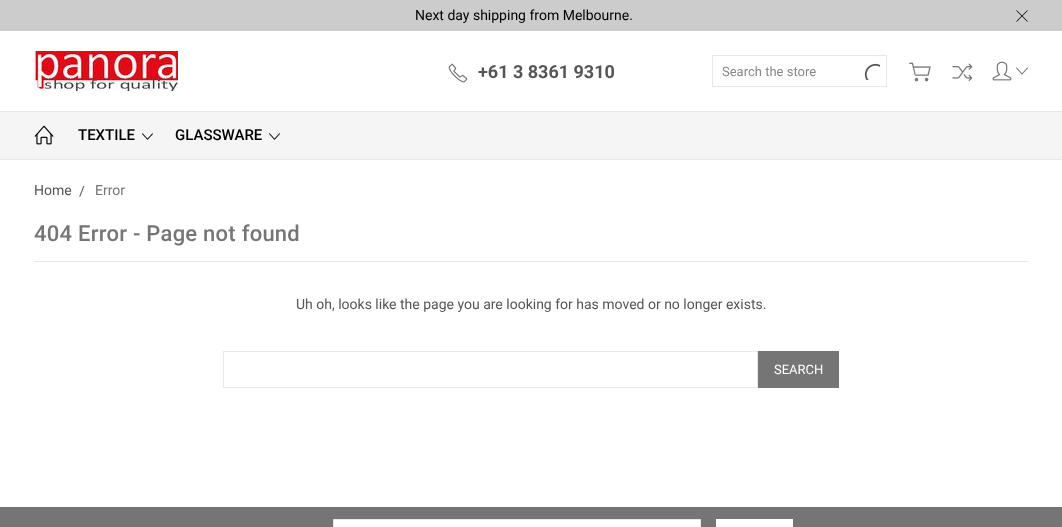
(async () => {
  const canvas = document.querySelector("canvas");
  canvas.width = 1062;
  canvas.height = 527;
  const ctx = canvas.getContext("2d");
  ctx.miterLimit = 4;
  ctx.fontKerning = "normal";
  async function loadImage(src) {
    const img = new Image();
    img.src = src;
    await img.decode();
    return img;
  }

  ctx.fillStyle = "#ffffff";
  ctx.fillRect(0, 0, 1062, 527);
  ctx.fillStyle = "#cccccc";
  ctx.fillRect(0, 0, 1062, 31);
  ctx.drawImage(await loadImage("img/1.png"), 1016, 10, 12, 12);
  ctx.drawImage(await loadImage("img/2.png"), 34, 51, 144, 40);
  ctx.drawImage(await loadImage("img/3.png"), 448, 63, 20, 20);
  ctx.strokeStyle = "#e8e8e8";
  ctx.strokeRect(712.5, 55.5, 174, 31);
  ctx.drawImage(await loadImage("img/4.png"), 864, 63, 16, 17);
  ctx.drawImage(await loadImage("img/5.png"), 909, 62, 22, 20);
  ctx.drawImage(await loadImage("img/6.png"), 952, 63, 21, 18);
  ctx.drawImage(await loadImage("img/7.png"), 992, 61, 20, 20);
  ctx.drawImage(await loadImage("img/8.png"), 1016, 67, 12, 8);
  for (const [x, y, w, h, color] of [
    [0, 112, 1062, 47, "#f5f5f5"],
    [0, 111, 1062, 1, "#e8e8e8"],
    [0, 159, 1062, 1, "#e8e8e8"],
  ]) {
    ctx.fillStyle = color;
    ctx.fillRect(x, y, w, h);
  }
  ctx.drawImage(await loadImage("img/9.png"), 34, 125, 20, 20);
  ctx.drawImage(await loadImage("img/10.png"), 142, 133, 11, 7);
  ctx.drawImage(await loadImage("img/10.png"), 269, 133, 11, 7);
  ctx.fillRect(34, 261, 994, 1);
  ctx.strokeRect(223.5, 351.5, 534, 36);
  ctx.fillStyle = "#757575";
  ctx.fillRect(758, 351, 81, 37);
  ctx.fillRect(0, 507, 1062, 20);
  ctx.fillStyle = "#ffffff";
  ctx.beginPath();
  ctx.rect(333.5, 519.5, 367, 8);
  ctx.fill();
  ctx.stroke();
  ctx.fillRect(716, 519, 77, 8);
  ctx.font = "14px Roboto";
  ctx.fillStyle = "#000000";
  ctx.fillText("Next day shipping from Melbourne.", 415, 20);
  ctx.font = "bold 18px Roboto";
  ctx.fillStyle = "#555555";
  ctx.fillText("+61 3 8361 9310", 478, 78);
  ctx.font = "13px Roboto";
  ctx.fillStyle = "#888888";
  ctx.fillText("Search the store", 722, 76);
  ctx.font = "500 15px Roboto";
  ctx.fillStyle = "#000000";
  ctx.fillText("TEXTILE", 78, 140);
  ctx.fillText("GLASSWARE", 175, 140);
  ctx.font = "14px Roboto";
  ctx.fillStyle = "#555555";
  ctx.fillText("Home", 34, 195);
  ctx.fillText("/", 79, 196);
  ctx.fillStyle = "#757575";
  ctx.fillText("Error", 95, 195);
  ctx.letterSpacing = "0.25px";
  ctx.font = "500 22px Roboto";
  ctx.fillText("404 Error - Page not found", 34, 241);
  ctx.letterSpacing = "0px";
  ctx.font = "14px Roboto";
  ctx.fillStyle = "#555555";
  ctx.fillText("Uh oh, looks like the page you are looking for has moved or no longer exists.", 296, 309);
  ctx.font = "13px Roboto";
  ctx.fillStyle = "#ffffff";
  ctx.fillText("SEARCH", 774, 374);
})();
